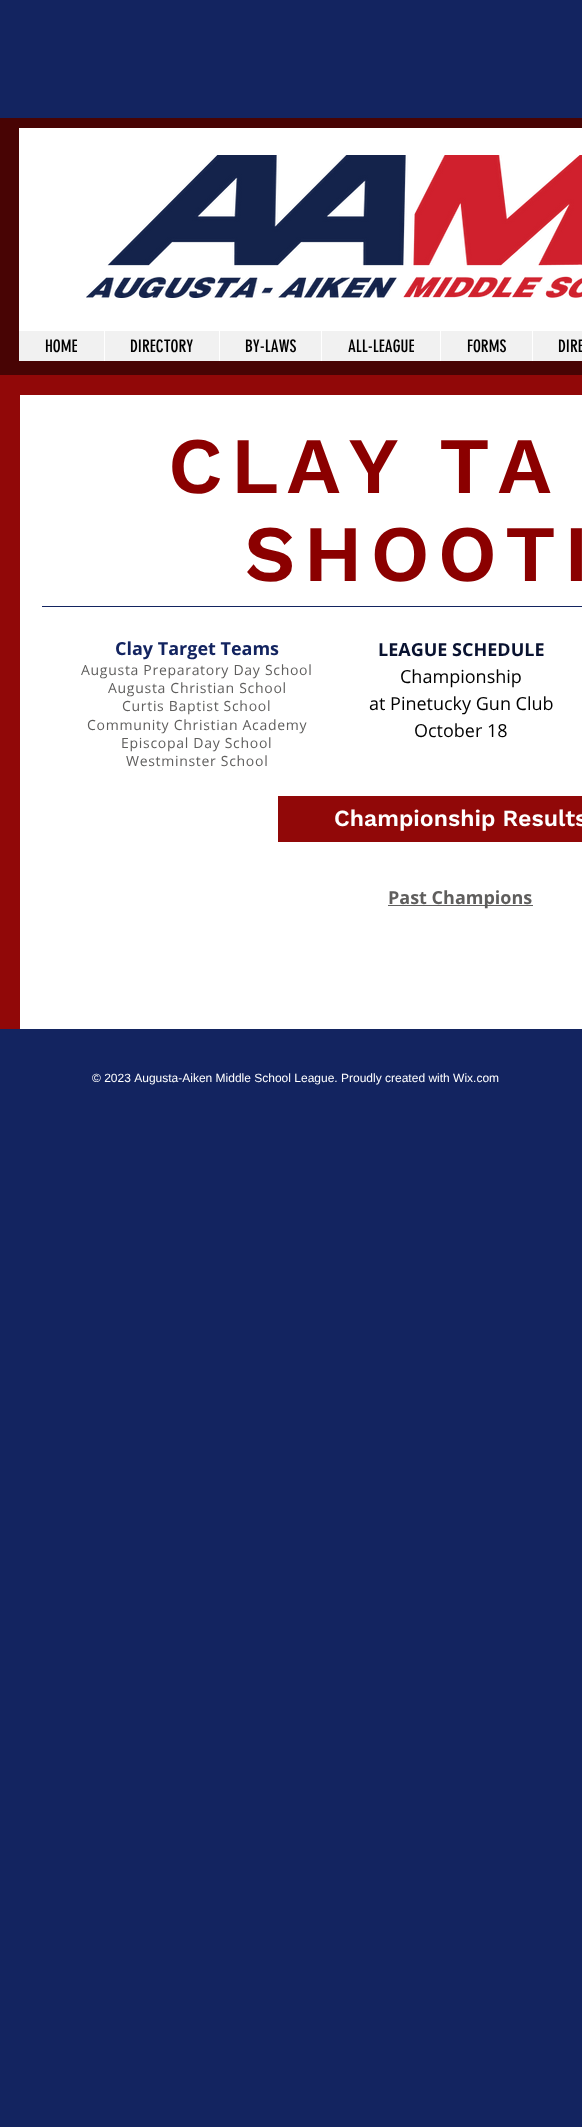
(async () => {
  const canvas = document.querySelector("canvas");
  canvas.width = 582;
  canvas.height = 2127;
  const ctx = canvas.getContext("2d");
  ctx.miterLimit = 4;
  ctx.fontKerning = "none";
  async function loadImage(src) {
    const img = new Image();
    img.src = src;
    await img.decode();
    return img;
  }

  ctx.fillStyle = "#132460";
  ctx.fillRect(0, 0, 582, 2127);
  ctx.fillStyle = "#480404";
  ctx.fillRect(0, 118, 582, 257);
  ctx.fillStyle = "#ffffff";
  ctx.fillRect(19, 128, 563, 203);
  ctx.drawImage(await loadImage("img/1.png"), 86, 155, 496, 143);
  for (const [x, y, w, h, color] of [
    [19, 331, 563, 30, "#f1f1f1"],
    [104, 331, 1, 30, "#ffffff"],
    [219, 331, 1, 30, "#ffffff"],
    [321, 331, 1, 30, "#ffffff"],
    [440, 331, 1, 30, "#ffffff"],
    [532, 331, 1, 30, "#ffffff"],
    [0, 375, 582, 654, "#910808"],
    [20, 395, 562, 634, "#ffffff"],
    [42, 606, 540, 1, "#132460"],
    [278, 796, 304, 46, "#910808"],
    [388, 905, 145, 1, "#5f5e5d"],
  ]) {
    ctx.fillStyle = color;
    ctx.fillRect(x, y, w, h);
  }
  ctx.font = "17px 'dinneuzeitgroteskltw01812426'";
  ctx.fillStyle = "#000000";
  for (const [text, x, y] of [
    ["HOME", 45, 352],
    ["DIRECTORY", 130, 352],
    ["BY-LAWS", 245, 352],
    ["ALL-LEAGUE", 348, 352],
    ["FORMS", 467, 352],
    ["DIRE", 558, 352],
  ]) {
    ctx.fillText(text, x, y);
  }
  ctx.letterSpacing = "8px";
  ctx.font = "600 80px Work Sans";
  ctx.fillStyle = "#8b0000";
  ctx.fillText("CLAY", 168, 493);
  ctx.fillText("TA", 439, 493);
  ctx.fillText("SHOOTI", 244, 581);
  ctx.letterSpacing = "0px";
  ctx.font = "bold 18px Open Sans";
  ctx.fillStyle = "#132460";
  ctx.fillText("Clay Target Teams", 115, 655);
  ctx.letterSpacing = "0.7px";
  ctx.font = "14px Open Sans";
  ctx.fillStyle = "#5f5e5d";
  for (const [text, x, y] of [
    ["Augusta Preparatory Day School", 81, 675],
    ["Augusta Christian School", 108, 693],
    ["Curtis Baptist School", 122, 711],
    ["Community Christian Academy", 87, 730],
    ["Episcopal Day School", 121, 748],
    ["Westminster School", 126, 766],
  ]) {
    ctx.fillText(text, x, y);
  }
  ctx.letterSpacing = "0px";
  ctx.font = "bold 18px Open Sans";
  ctx.fillStyle = "#091230";
  ctx.fillText("LEAGUE SCHEDULE", 378, 656);
  ctx.font = "18px Open Sans";
  ctx.fillStyle = "#000000";
  for (const [text, x, y] of [
    ["Championship", 400, 683],
    ["at Pinetucky Gun Club", 369, 710],
    ["October 18", 414, 737],
  ]) {
    ctx.fillText(text, x, y);
  }
  ctx.font = "600 23px Work Sans";
  ctx.fillStyle = "#ffffff";
  ctx.fillText("Championship Results", 334, 826);
  ctx.font = "bold 18px Open Sans";
  ctx.fillStyle = "#5f5e5d";
  ctx.fillText("Past Champions", 388, 904);
  ctx.font = "12px Liberation Sans";
  ctx.fillStyle = "#ffffff";
  ctx.fillText("© 2023 Augusta-Aiken Middle School League. Proudly created with Wix.com", 92, 1082);
})();
